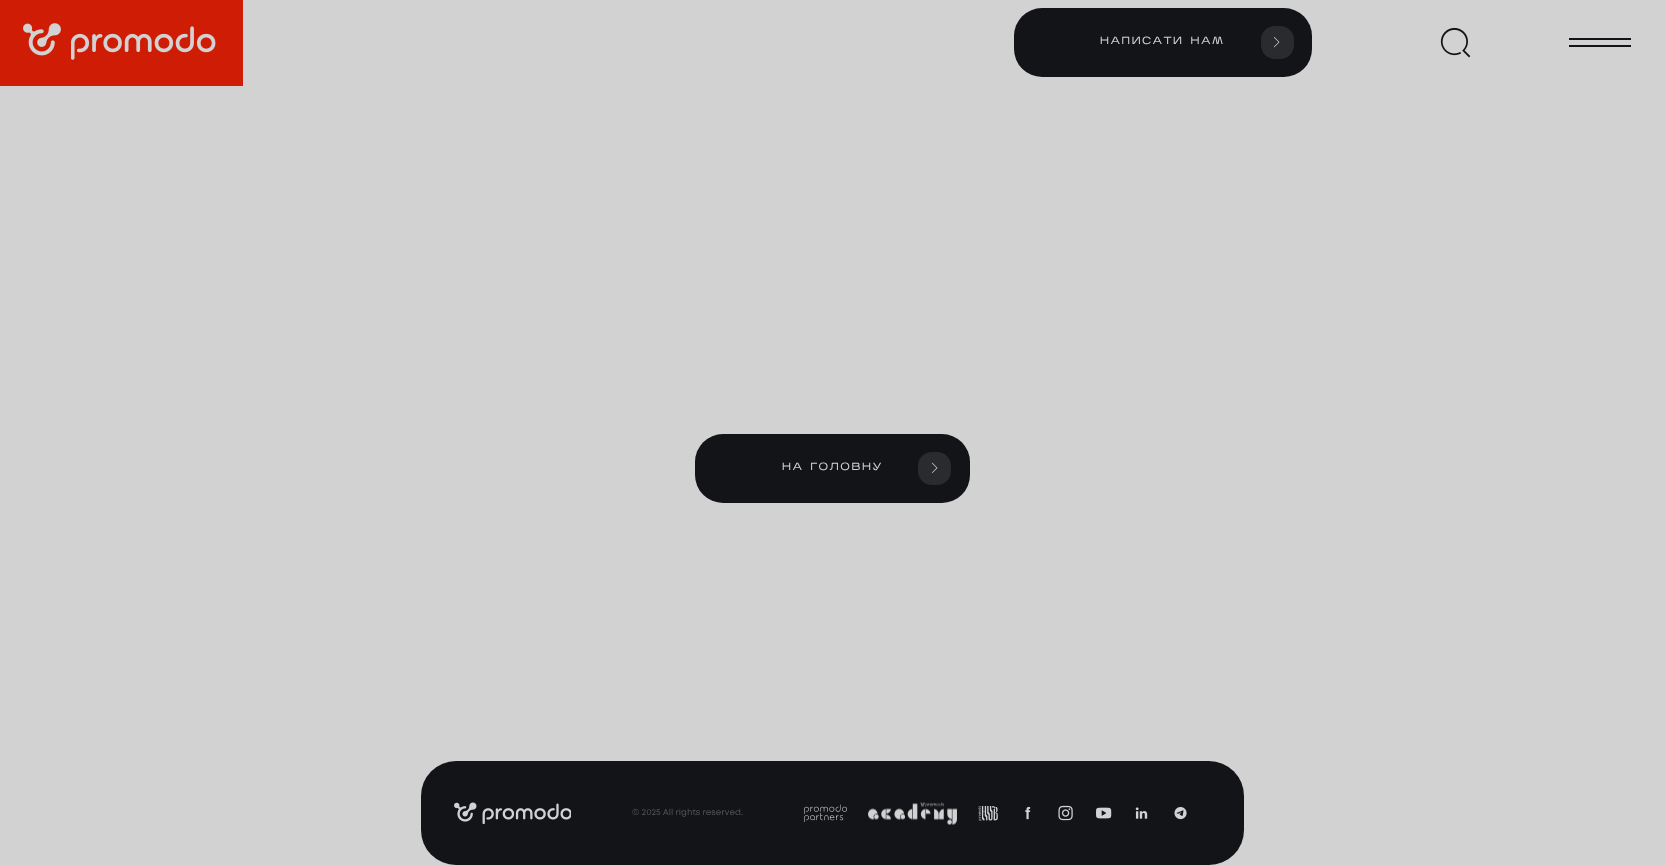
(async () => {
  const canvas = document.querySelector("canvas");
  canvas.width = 1665;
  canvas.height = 865;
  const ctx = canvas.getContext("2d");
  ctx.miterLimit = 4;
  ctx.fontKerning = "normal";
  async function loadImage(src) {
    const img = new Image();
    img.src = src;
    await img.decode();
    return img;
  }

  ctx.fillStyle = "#d2d2d3";
  ctx.fillRect(0, 0, 1665, 865);
  ctx.fillStyle = "#cf1c04";
  ctx.fillRect(0, 0, 243, 86);
  ctx.drawImage(await loadImage("img/1.png"), 23, 23, 38, 33);
  ctx.drawImage(await loadImage("img/2.png"), 71, 26, 145, 34);
  ctx.fillStyle = "#121417";
  ctx.beginPath();
  ctx.roundRect(1014, 8, 298, 69, 28);
  ctx.fill();
  ctx.fillStyle = "#292b2e";
  ctx.beginPath();
  ctx.roundRect(1261, 26, 33, 33, 14);
  ctx.fill();
  ctx.drawImage(await loadImage("img/3.png"), 1273, 37, 7, 11);
  ctx.drawImage(await loadImage("img/4.png"), 1440, 27, 31, 31);
  ctx.fillStyle = "#121417";
  ctx.fillRect(1569, 38, 62, 2);
  ctx.fillRect(1569, 45, 62, 2);
  ctx.beginPath();
  ctx.roundRect(695, 434, 275, 69, 28);
  ctx.fill();
  ctx.fillStyle = "#292b2e";
  ctx.beginPath();
  ctx.roundRect(918, 452, 33, 33, 14);
  ctx.fill();
  ctx.drawImage(await loadImage("img/5.png"), 931, 462, 7, 11);
  ctx.fillStyle = "#121417";
  ctx.beginPath();
  ctx.roundRect(421, 761, 823, 104, 35);
  ctx.fill();
  ctx.drawImage(await loadImage("img/6.png"), 454, 802, 117, 22);
  ctx.drawImage(await loadImage("img/7.png"), 804, 804, 43, 18);
  ctx.drawImage(await loadImage("img/8.png"), 868, 802, 89, 23);
  ctx.drawImage(await loadImage("img/9.png"), 978, 806, 20, 15);
  ctx.drawImage(await loadImage("img/10.png"), 1025, 806, 6, 14);
  ctx.drawImage(await loadImage("img/11.png"), 1058, 805, 15, 16);
  ctx.drawImage(await loadImage("img/12.png"), 1096, 807, 16, 12);
  ctx.drawImage(await loadImage("img/13.png"), 1135, 807, 13, 12);
  ctx.drawImage(await loadImage("img/14.png"), 1174, 807, 13, 13);
  ctx.letterSpacing = "1.75px";
  ctx.font = "10.4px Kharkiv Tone";
  ctx.fillStyle = "#d2d2d3";
  ctx.fillText("НАПИСАТИ НАМ", 1100, 44);
  ctx.fillText("НА ГОЛОВНУ", 782, 470);
  ctx.letterSpacing = "0px";
  ctx.font = "8.7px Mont";
  ctx.fillStyle = "#545557";
  ctx.fillText("© 2025 All rights reserved.", 632, 815);
})();
